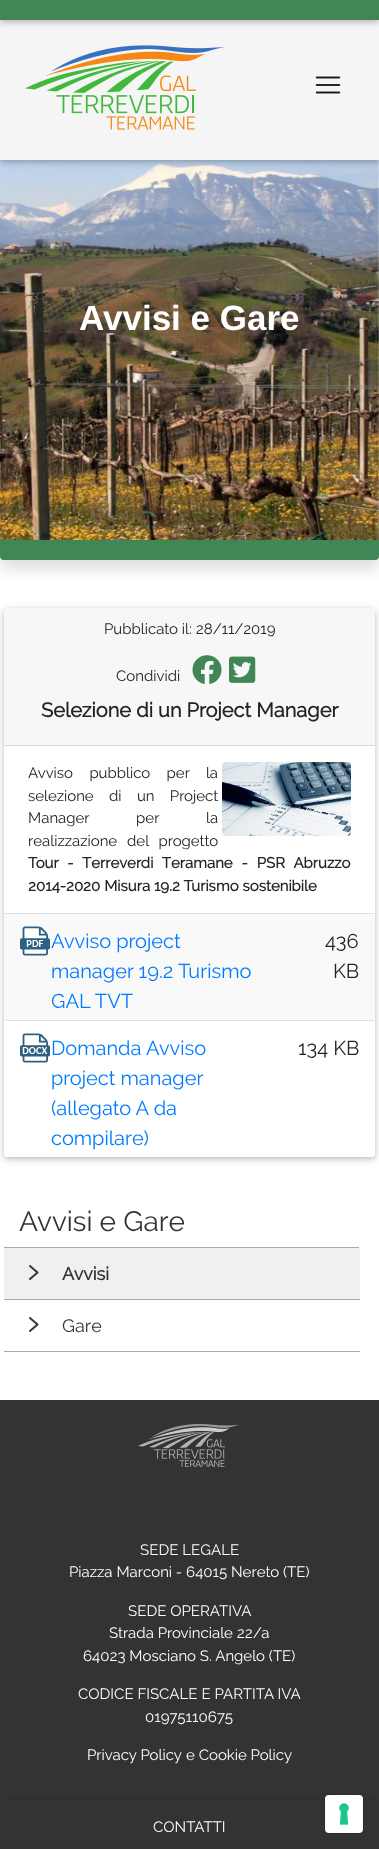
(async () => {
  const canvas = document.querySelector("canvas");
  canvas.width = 379;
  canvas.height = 1849;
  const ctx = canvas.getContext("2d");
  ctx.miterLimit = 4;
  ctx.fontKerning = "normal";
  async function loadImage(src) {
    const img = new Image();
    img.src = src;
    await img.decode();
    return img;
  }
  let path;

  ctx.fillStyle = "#ffffff";
  ctx.fillRect(0, 0, 379, 1849);
  ctx.fillStyle = "rgba(0, 0, 0, 0.15)";
  ctx.filter = "blur(8px)";
  ctx.beginPath();
  ctx.roundRect(0, 548, 379, 20, 4);
  ctx.fill();
  ctx.filter = "none";
  ctx.drawImage(await loadImage("img/3.png"), 0, 160, 379, 380);
  ctx.fillStyle = "rgba(0, 0, 0, 0.12)";
  ctx.filter = "blur(5px)";
  ctx.beginPath();
  ctx.rect(0, 12, 379, 150);
  ctx.fill();
  ctx.filter = "none";
  ctx.fillStyle = "rgba(0, 0, 0, 0.16)";
  ctx.filter = "blur(2.5px)";
  ctx.beginPath();
  ctx.rect(0, 12, 379, 150);
  ctx.fill();
  ctx.filter = "none";
  ctx.fillStyle = "#f5f5f5";
  ctx.fillRect(0, 20, 379, 140);
  ctx.drawImage(await loadImage("img/1.png"), 25, 45, 200, 85);
  ctx.drawImage(await loadImage("img/2.png"), 315, 76, 26, 18);
  ctx.fillStyle = "rgba(0, 0, 0, 0.12)";
  ctx.filter = "blur(5px)";
  ctx.beginPath();
  ctx.rect(0, 2, 379, 20);
  ctx.fill();
  ctx.filter = "none";
  ctx.fillStyle = "rgba(0, 0, 0, 0.16)";
  ctx.filter = "blur(2.5px)";
  ctx.beginPath();
  ctx.rect(0, 2, 379, 20);
  ctx.fill();
  ctx.filter = "none";
  ctx.fillStyle = "#408755";
  ctx.fillRect(0, 0, 379, 20);
  ctx.beginPath();
  ctx.roundRect(0, 540, 379, 20, [0, 0, 4, 4]);
  ctx.fill();
  ctx.fillStyle = "rgba(0, 0, 0, 0.12)";
  ctx.filter = "blur(5px)";
  ctx.beginPath();
  ctx.roundRect(4, 610, 371, 549, 4);
  ctx.fill();
  ctx.filter = "none";
  ctx.fillStyle = "rgba(0, 0, 0, 0.16)";
  ctx.filter = "blur(2.5px)";
  ctx.beginPath();
  ctx.roundRect(4, 610, 371, 549, 4);
  ctx.fill();
  ctx.filter = "none";
  ctx.fillStyle = "#ffffff";
  ctx.beginPath();
  ctx.roundRect(4, 608, 371, 549, 4);
  ctx.fill();
  ctx.fillStyle = "#f7f7f7";
  ctx.beginPath();
  ctx.roundRect(4, 608, 371, 138, [4, 4, 0, 0]);
  ctx.fill();
  ctx.fillStyle = "#d8d8d8";
  ctx.fillRect(4, 745, 371, 1);
  ctx.drawImage(await loadImage("img/4.png"), 192, 655, 30, 29);
  ctx.drawImage(await loadImage("img/5.png"), 229, 656, 27, 27);
  ctx.drawImage(await loadImage("img/6.png"), 222, 762, 129, 74);
  ctx.fillStyle = "#f9f9f9";
  ctx.fillRect(4, 913, 371, 107);
  ctx.fillStyle = "#dee2e6";
  ctx.fillRect(5, 913, 369, 1);
  ctx.drawImage(await loadImage("img/7.png"), 20, 926, 30, 30);
  ctx.fillStyle = "#ffffff";
  ctx.beginPath();
  ctx.roundRect(4, 1020, 371, 137, [0, 0, 4, 4]);
  ctx.fill();
  ctx.fillStyle = "#dee2e6";
  ctx.fillRect(5, 1020, 369, 1);
  ctx.drawImage(await loadImage("img/8.png"), 20, 1033, 30, 30);
  for (const [x, y, w, h, color] of [
    [4, 1247, 355, 1, "#aaaaaa"],
    [4, 1248, 356, 51, "#f0f0f0"],
    [4, 1299, 356, 1, "#aaaaaa"],
  ]) {
    ctx.fillStyle = color;
    ctx.fillRect(x, y, w, h);
  }
  path = new Path2D("M30 1266L37.5 1272.5L30 1279");
  ctx.strokeStyle = "#373737";
  ctx.lineWidth = 2;
  ctx.lineCap = "round";
  ctx.lineJoin = "round";
  ctx.stroke(path);
  ctx.fillRect(4, 1351, 356, 1);
  path = new Path2D("M30 1318L37.5 1324.5L30 1331");
  ctx.stroke(path);
  ctx.fillStyle = "#333333";
  ctx.fillRect(0, 1400, 379, 449);
  ctx.drawImage(await loadImage("img/9.png"), 138, 1424, 102, 43);
  ctx.fillStyle = "#2e2e2e";
  ctx.fillRect(4, 1799, 371, 1);
  ctx.beginPath();
  ctx.roundRect(324.5, 1794.5, 39, 39, 4.5);
  ctx.strokeStyle = "rgba(0, 0, 0, 0.15)";
  ctx.lineWidth = 1;
  ctx.lineJoin = "miter";
  ctx.stroke();
  ctx.fillStyle = "#ffffff";
  ctx.beginPath();
  ctx.roundRect(325, 1795, 38, 38, 4);
  ctx.fill();
  ctx.drawImage(await loadImage("img/10.png"), 339, 1803, 10, 22);
  ctx.font = "bold 35px Liberation Sans";
  ctx.fillText("Avvisi e Gare", 79, 330);
  ctx.font = "15px Raleway";
  ctx.fillStyle = "#212529";
  ctx.fillText("Pubblicato il: 28/11/2019", 104, 634);
  ctx.fillText("Condividi", 116, 681);
  ctx.font = "bold 20px Raleway";
  ctx.fillText("Selezione di un Project Manager", 41, 717);
  ctx.wordSpacing = "12.5px";
  ctx.font = "15px Raleway";
  ctx.fillText("Avviso pubblico per la", 28, 778);
  ctx.wordSpacing = "11.5px";
  ctx.fillText("selezione di un Project", 28, 801);
  ctx.wordSpacing = "43px";
  ctx.fillText("Manager per la", 28, 823);
  ctx.wordSpacing = "6px";
  ctx.fillText("realizzazione del progetto", 28, 846);
  ctx.wordSpacing = "5px";
  ctx.font = "bold 15px Raleway";
  ctx.fillText("Tour - Terreverdi Teramane - PSR Abruzzo", 28, 868);
  ctx.wordSpacing = "0px";
  ctx.fillText("2014-2020 Misura 19.2 Turismo sostenibile", 28, 891);
  ctx.font = "20px Raleway";
  ctx.fillStyle = "#007bff";
  for (const [text, x, y] of [
    ["Avviso project", 51, 948],
    ["manager 19.2 Turismo", 51, 978],
    ["GAL TVT", 51, 1008],
  ]) {
    ctx.fillText(text, x, y);
  }
  ctx.fillStyle = "#212529";
  ctx.fillText("436", 325, 948);
  ctx.fillText("KB", 333, 978);
  ctx.fillStyle = "#007bff";
  for (const [text, x, y] of [
    ["Domanda Avviso", 51, 1055],
    ["project manager", 51, 1085],
    ["(allegato A da", 51, 1115],
    ["compilare)", 51, 1145],
  ]) {
    ctx.fillText(text, x, y);
  }
  ctx.fillStyle = "#212529";
  ctx.fillText("134 KB", 298, 1055);
  ctx.font = "28px Raleway";
  ctx.fillStyle = "#333333";
  ctx.fillText("Avvisi e Gare", 19, 1231);
  ctx.font = "bold 18px Raleway";
  ctx.fillText("Avvisi", 62, 1280);
  ctx.font = "18px Raleway";
  ctx.fillText("Gare", 62, 1332);
  ctx.font = "15px Raleway";
  ctx.fillStyle = "#ffffff";
  for (const [text, x, y] of [
    ["SEDE LEGALE", 140, 1555],
    ["Piazza Marconi - 64015 Nereto (TE)", 69, 1577],
    ["SEDE OPERATIVA", 128, 1616],
    ["Strada Provinciale 22/a", 109, 1638],
    ["64023 Mosciano S. Angelo (TE)", 83, 1661],
    ["CODICE FISCALE E PARTITA IVA", 78, 1699],
    ["01975110675", 145, 1722],
    ["Privacy Policy", 87, 1760],
    ["e Cookie Policy", 186, 1760],
    ["CONTATTI", 153, 1832],
  ]) {
    ctx.fillText(text, x, y);
  }
})();
